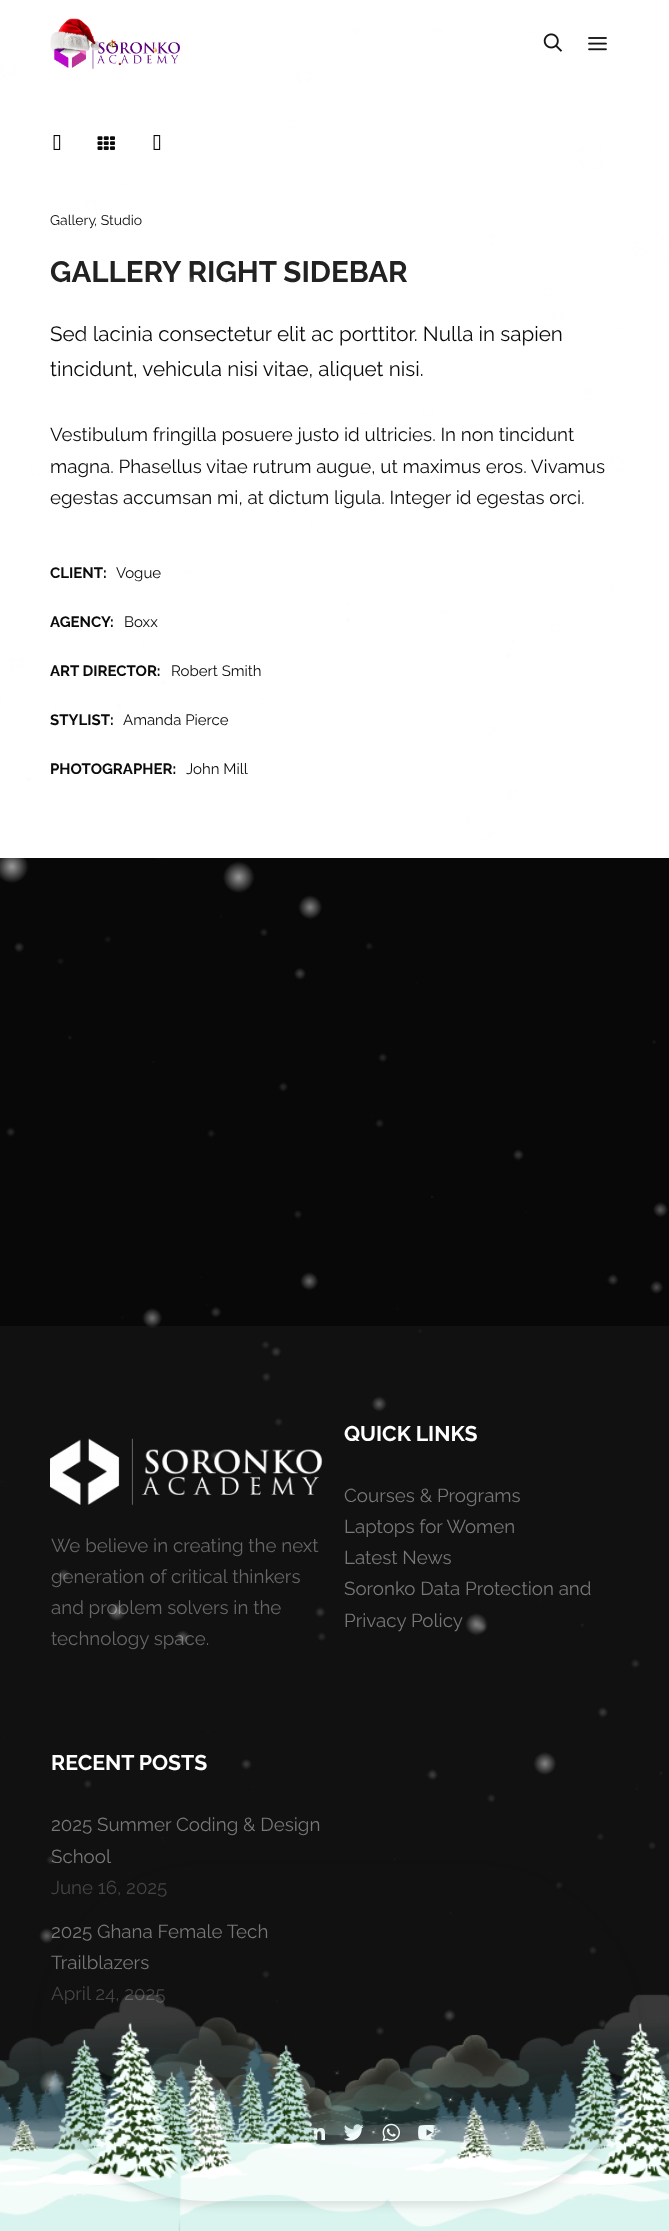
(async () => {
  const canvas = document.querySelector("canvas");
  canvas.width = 669;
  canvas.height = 2231;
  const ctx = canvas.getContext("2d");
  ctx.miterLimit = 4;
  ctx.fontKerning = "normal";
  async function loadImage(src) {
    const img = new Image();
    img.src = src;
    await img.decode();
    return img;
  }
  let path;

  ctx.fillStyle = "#080808";
  ctx.fillRect(0, 0, 669, 2231);
  ctx.fillStyle = "#ffffff";
  ctx.fillRect(0, 0, 669, 858);
  ctx.drawImage(await loadImage("img/2.png"), 50, 18, 130, 51);
  ctx.drawImage(await loadImage("img/3.png"), 543, 33, 20, 19);
  ctx.drawImage(await loadImage("img/4.png"), 588, 37, 19, 14);
  ctx.drawImage(await loadImage("img/5.png"), 53, 135, 8, 15);
  ctx.drawImage(await loadImage("img/6.png"), 97, 136, 18, 14);
  ctx.drawImage(await loadImage("img/5.png"), 153, 135, 8, 15);
  ctx.fillStyle = "#111111";
  ctx.fillRect(0, 1326, 669, 772);
  ctx.drawImage(await loadImage("img/7.png"), 50, 1438, 273, 67);
  ctx.fillStyle = "#0e0e0e";
  ctx.fillRect(0, 2098, 622, 48);
  ctx.drawImage(await loadImage("img/8.png"), 241, 2122, 6, 7);
  ctx.drawImage(await loadImage("img/9.png"), 307, 2122, 18, 18);
  ctx.drawImage(await loadImage("img/10.png"), 344, 2124, 20, 17);
  ctx.drawImage(await loadImage("img/11.png"), 382, 2123, 18, 19);
  ctx.drawImage(await loadImage("img/12.png"), 418, 2125, 22, 15);
  ctx.font = "14px Raleway";
  ctx.fillStyle = "#0a0a0a";
  ctx.fillText("Gallery", 50, 225);
  ctx.fillText(", Studio", 94, 225);
  ctx.font = "bold 29.5px Raleway";
  ctx.fillStyle = "#222222";
  ctx.fillText("GALLERY RIGHT SIDEBAR", 50, 282);
  ctx.font = "20.6px Raleway";
  ctx.fillStyle = "#0a0a0a";
  ctx.fillText("Sed lacinia consectetur elit ac porttitor. Nulla in sapien", 50, 341);
  ctx.fillText("tincidunt, vehicula nisi vitae, aliquet nisi.", 50, 376);
  ctx.font = "18.75px Raleway";
  for (const [text, x, y] of [
    ["Vestibulum fringilla posuere justo id ultricies. In non tincidunt", 50, 441],
    ["magna. Phasellus vitae rutrum augue, ut maximus eros. Vivamus", 50, 473],
    ["egestas accumsan mi, at dictum ligula. Integer id egestas orci.", 50, 504],
  ]) {
    ctx.fillText(text, x, y);
  }
  ctx.font = "bold 15px Raleway";
  ctx.fillText("CLIENT", 50, 578);
  ctx.fillText(":", 103, 578);
  ctx.font = "15px Raleway";
  ctx.fillText("Vogue", 116, 578);
  ctx.font = "bold 15px Raleway";
  ctx.fillText("AGENCY", 50, 627);
  ctx.fillText(":", 110, 627);
  ctx.font = "15px Raleway";
  ctx.fillText("Boxx", 124, 627);
  ctx.font = "bold 15px Raleway";
  ctx.fillText("ART DIRECTOR:", 50, 676);
  ctx.font = "15px Raleway";
  ctx.fillText("Robert Smith", 171, 676);
  ctx.font = "bold 15px Raleway";
  ctx.fillText("STYLIST", 50, 725);
  ctx.fillText(":", 110, 725);
  ctx.font = "15px Raleway";
  ctx.fillText("Amanda Pierce", 123, 725);
  ctx.font = "bold 15px Raleway";
  ctx.fillText("PHOTOGRAPHER:", 50, 774);
  ctx.font = "15px Raleway";
  ctx.fillText("John Mill", 186, 774);
  ctx.font = "18.75px Raleway";
  ctx.fillStyle = "#666666";
  for (const [text, x, y] of [
    ["We believe in creating the next", 51, 1552],
    ["generation of critical thinkers", 51, 1583],
    ["and problem solvers in the", 51, 1614],
    ["technology space.", 51, 1645],
  ]) {
    ctx.fillText(text, x, y);
  }
  ctx.font = "bold 21.25px Raleway";
  ctx.fillStyle = "#ffffff";
  ctx.fillText("QUICK LINKS", 344, 1441);
  ctx.font = "18.75px Raleway";
  ctx.fillStyle = "#777777";
  for (const [text, x, y] of [
    ["Courses & Programs", 344, 1502],
    ["Laptops for Women", 344, 1533],
    ["Latest News", 344, 1564],
    ["Soronko Data Protection and", 344, 1595],
    ["Privacy Policy", 344, 1627],
  ]) {
    ctx.fillText(text, x, y);
  }
  ctx.font = "bold 21.25px Raleway";
  ctx.fillStyle = "#ffffff";
  ctx.fillText("RECENT POSTS", 51, 1770);
  ctx.font = "18.75px Raleway";
  ctx.fillStyle = "#777777";
  ctx.fillText("2025 Summer Coding & Design", 51, 1831);
  ctx.fillText("School", 51, 1863);
  ctx.fillStyle = "#444444";
  ctx.fillText("June 16, 2025", 51, 1894);
  ctx.fillStyle = "#777777";
  ctx.fillText("2025 Ghana Female Tech", 51, 1938);
  ctx.fillText("Trailblazers", 51, 1969);
  ctx.fillStyle = "#444444";
  ctx.fillText("April 24, 2025", 51, 2000);
  ctx.drawImage(await loadImage("img/13.png"), 0, 1994, 669, 237);
  ctx.save();
  path = new Path2D("M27 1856H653V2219H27ZM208.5 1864H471.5C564.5 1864 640 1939.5 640 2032.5C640 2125.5 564.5 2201 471.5 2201H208.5C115.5 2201 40 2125.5 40 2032.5C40 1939.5 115.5 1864 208.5 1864Z");
  ctx.clip(path, "evenodd");
  ctx.fillStyle = "rgba(0, 0, 0, 0.1)";
  ctx.filter = "blur(4px)";
  ctx.beginPath();
  ctx.roundRect(40, 1869, 600, 337, 168.5);
  ctx.fill();
  ctx.filter = "none";
  ctx.restore();
  ctx.drawImage(await loadImage("img/1.png"), 0, 29, 669, 2121);
})();
